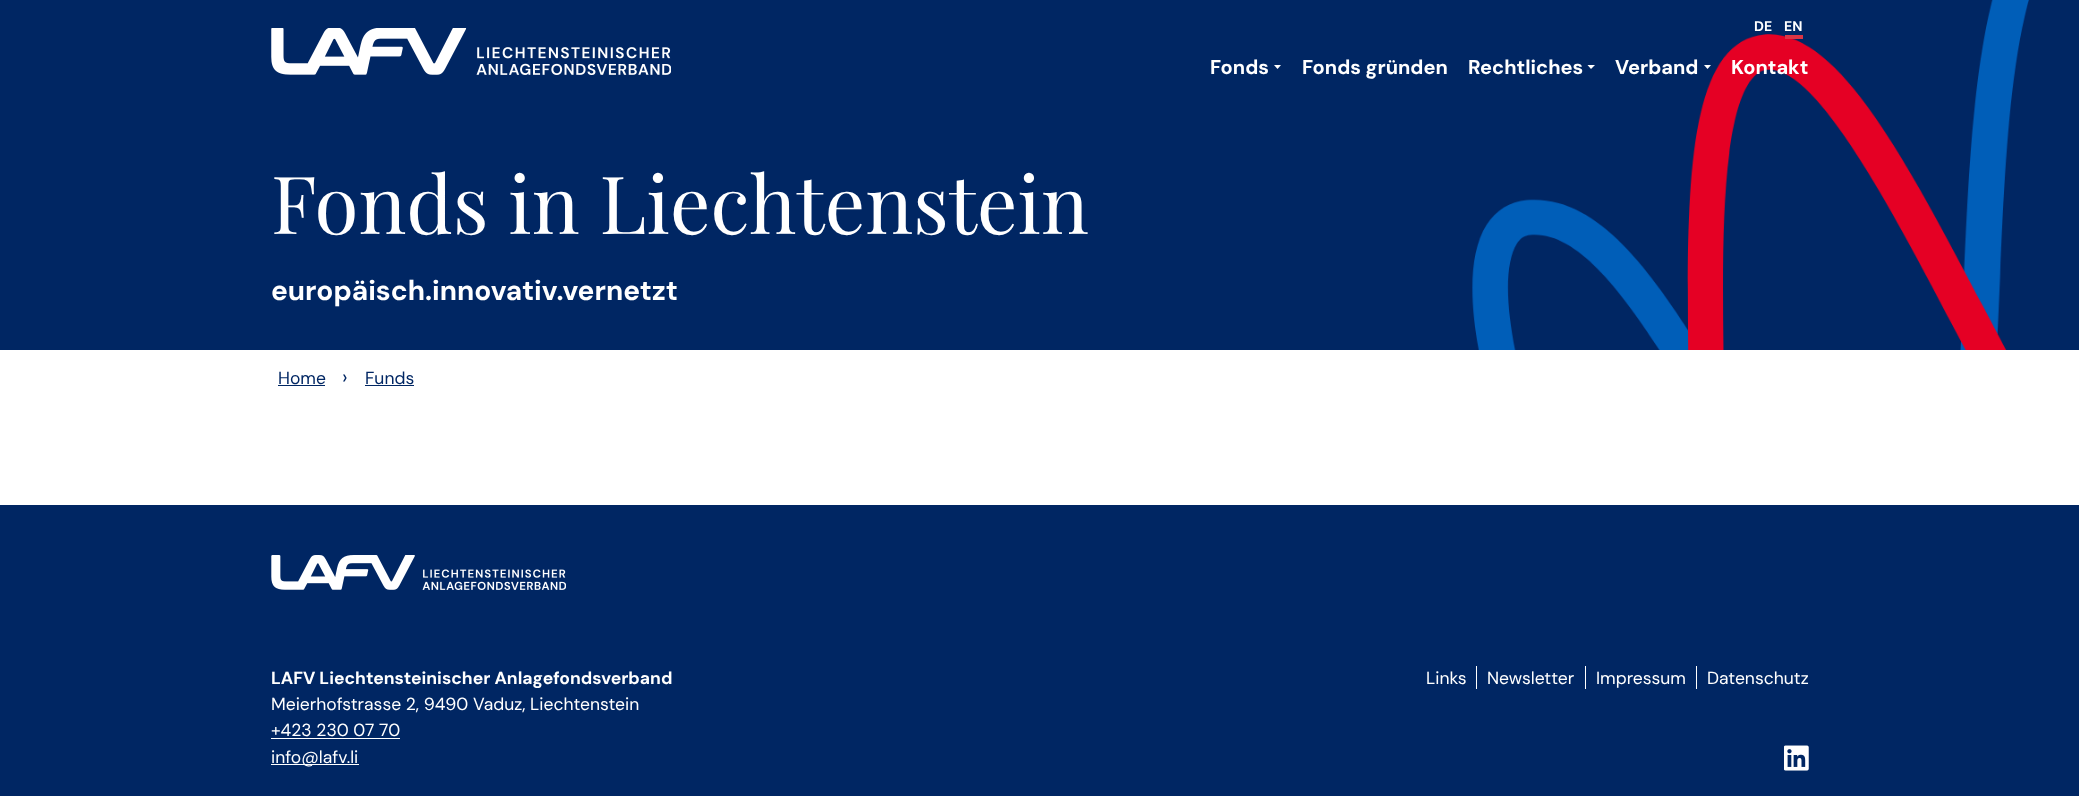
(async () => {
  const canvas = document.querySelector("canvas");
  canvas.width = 2079;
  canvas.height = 796;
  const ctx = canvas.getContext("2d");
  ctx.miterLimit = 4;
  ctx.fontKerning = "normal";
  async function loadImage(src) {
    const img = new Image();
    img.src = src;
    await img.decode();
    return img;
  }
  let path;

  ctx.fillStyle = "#ffffff";
  ctx.fillRect(0, 0, 2079, 796);
  ctx.fillStyle = "#002663";
  ctx.fillRect(0, 0, 2079, 350);
  ctx.drawImage(await loadImage("img/1.png"), 271, 28, 400, 47);
  ctx.drawImage(await loadImage("img/2.png"), 1472, 0, 557, 350);
  ctx.fillStyle = "#dc3545";
  ctx.fillRect(1785, 35, 18, 4);
  ctx.fillStyle = "#ffffff";
  path = new Path2D("M1274 65H1281L1277.5 69Z");
  ctx.fill(path);
  path = new Path2D("M1587.5 65H1595L1591 69Z");
  ctx.fill(path);
  path = new Path2D("M1704 65H1711L1707.5 69Z");
  ctx.fill(path);
  for (const [x, y, w, h, color] of [
    [278, 385, 47, 1, "#002663"],
    [365, 385, 49, 1, "#002663"],
    [0, 505, 2079, 291, "#002663"],
  ]) {
    ctx.fillStyle = color;
    ctx.fillRect(x, y, w, h);
  }
  ctx.drawImage(await loadImage("img/3.png"), 271, 555, 295, 35);
  for (const [x, y, w, h, color] of [
    [271, 738, 129, 1, "#ffffff"],
    [271, 764, 88, 1, "#ffffff"],
    [1476, 666, 1, 23, "#ffffff"],
    [1585, 666, 1, 23, "#ffffff"],
    [1696, 666, 1, 23, "#ffffff"],
  ]) {
    ctx.fillStyle = color;
    ctx.fillRect(x, y, w, h);
  }
  ctx.drawImage(await loadImage("img/4.png"), 1784, 745, 25, 26);
  ctx.font = "bold 14px DM Sans";
  ctx.fillText("DE", 1754, 31);
  ctx.fillText("EN", 1784, 31);
  ctx.font = "bold 20px DM Sans";
  for (const [text, x, y] of [
    ["Fonds", 1210, 74],
    ["Fonds gründen", 1302, 74],
    ["Rechtliches", 1468, 74],
    ["Verband", 1615, 74],
    ["Kontakt", 1731, 74],
  ]) {
    ctx.fillText(text, x, y);
  }
  ctx.font = "80px Playfair Display";
  ctx.fillText("Fonds in Liechtenstein", 271, 234);
  ctx.font = "bold 28px DM Sans";
  ctx.fillText("europäisch.innovativ.vernetzt", 271, 300);
  ctx.font = "17.5px DM Sans";
  ctx.fillStyle = "#002663";
  ctx.fillText("Home", 278, 384);
  ctx.font = "20px DM Sans";
  ctx.fillText("›", 342, 384);
  ctx.font = "17.5px DM Sans";
  ctx.fillText("Funds", 365, 384);
  ctx.font = "bold 17.5px DM Sans";
  ctx.fillStyle = "#ffffff";
  ctx.fillText("LAFV Liechtensteinischer Anlagefondsverband", 271, 684);
  ctx.font = "17.5px DM Sans";
  for (const [text, x, y] of [
    ["Meierhofstrasse 2, 9490 Vaduz, Liechtenstein", 271, 710],
    ["+423 230 07 70", 271, 736],
    ["info@lafv.li", 271, 763],
    ["Links", 1426, 684],
    ["Newsletter", 1487, 684],
    ["Impressum", 1596, 684],
    ["Datenschutz", 1707, 684],
  ]) {
    ctx.fillText(text, x, y);
  }
})();
